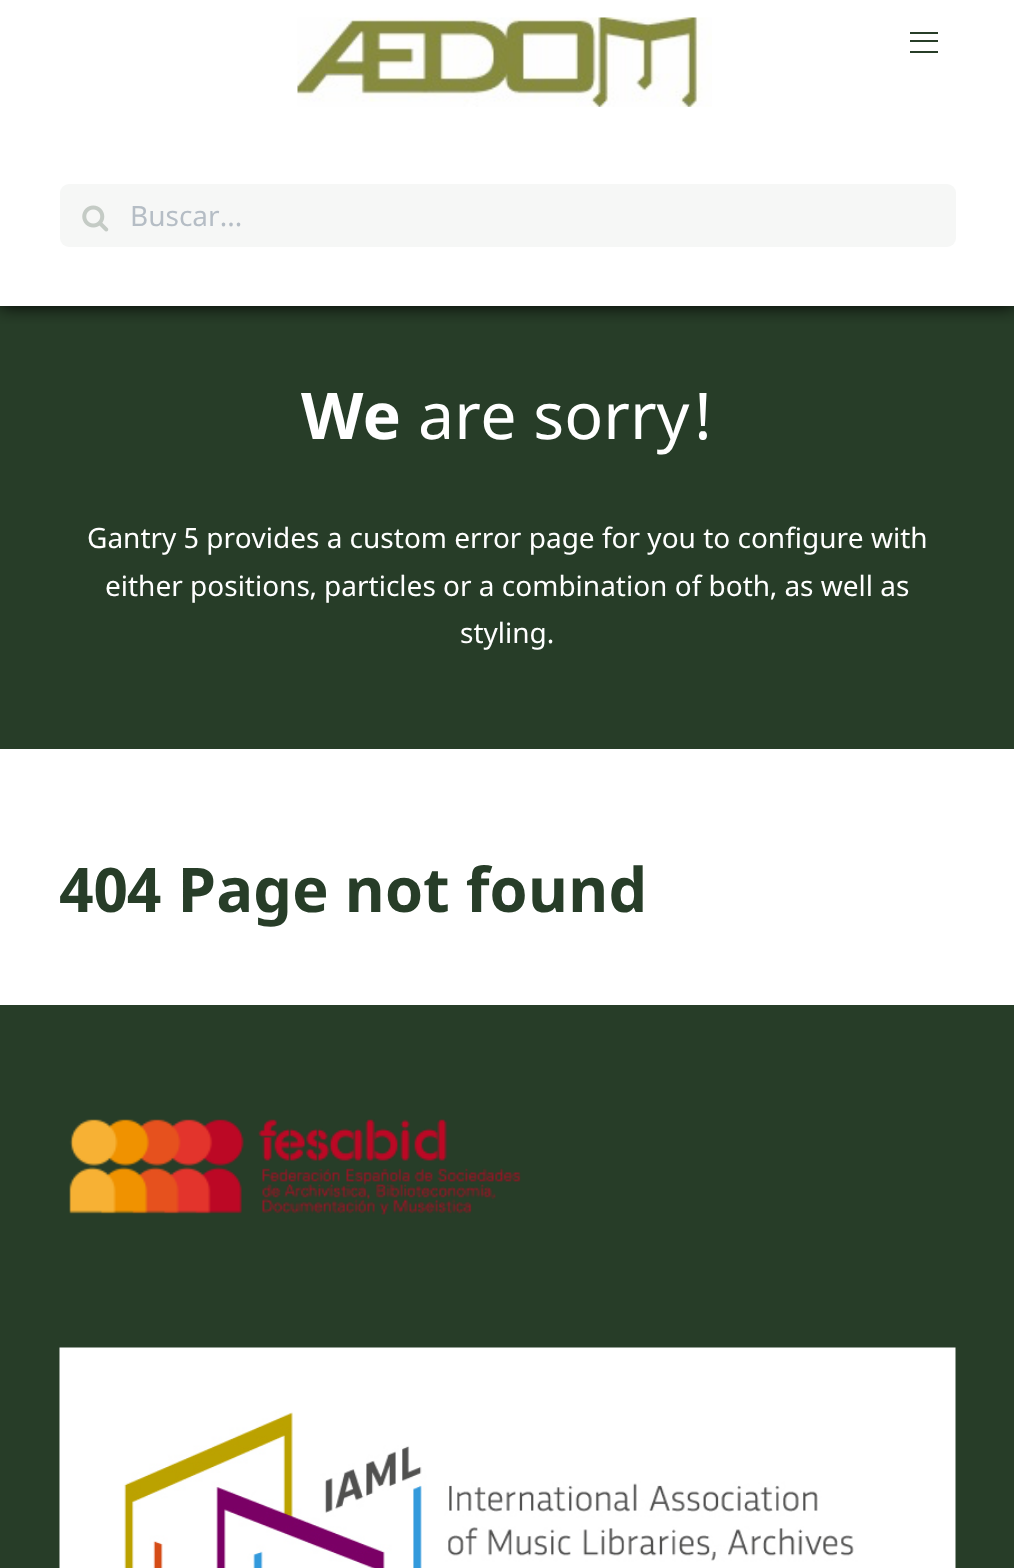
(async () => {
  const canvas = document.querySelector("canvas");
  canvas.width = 1014;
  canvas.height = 1568;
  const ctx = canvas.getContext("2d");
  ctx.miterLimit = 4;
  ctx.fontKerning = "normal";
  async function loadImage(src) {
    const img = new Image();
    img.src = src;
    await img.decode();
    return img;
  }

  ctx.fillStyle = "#ffffff";
  ctx.fillRect(0, 0, 1014, 1568);
  ctx.fillStyle = "#273d28";
  ctx.fillRect(0, 306, 1014, 443);
  ctx.save();
  ctx.beginPath();
  ctx.rect(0, 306, 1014, 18);
  ctx.clip();
  ctx.fillStyle = "#000000";
  ctx.filter = "blur(9px)";
  ctx.beginPath();
  ctx.rect(0, 0, 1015, 306);
  ctx.fill();
  ctx.filter = "none";
  ctx.restore();
  for (const [x, y, w, h, color] of [
    [910, 32, 28, 2, "#273d28"],
    [910, 40, 28, 2, "#273d28"],
    [910, 51, 28, 2, "#273d28"],
  ]) {
    ctx.fillStyle = color;
    ctx.fillRect(x, y, w, h);
  }
  ctx.drawImage(await loadImage("img/1.png"), 297, 17, 415, 90);
  ctx.fillStyle = "#f6f7f6";
  ctx.beginPath();
  ctx.roundRect(60, 184, 896, 63, 9);
  ctx.fill();
  ctx.drawImage(await loadImage("img/2.png"), 82, 205, 27, 27);
  ctx.fillStyle = "#273d28";
  ctx.fillRect(0, 1005, 1014, 563);
  ctx.drawImage(await loadImage("img/3.png"), 69, 1119, 452, 96);
  ctx.drawImage(await loadImage("img/4.png"), 59, 1347, 897, 221);
  ctx.font = "28px Noto Sans";
  ctx.fillStyle = "#b5bdc5";
  ctx.fillText("Buscar...", 130, 226);
  ctx.font = "bold 64.5px Noto Sans";
  ctx.fillStyle = "#ffffff";
  ctx.fillText("We", 301, 439);
  ctx.font = "64.5px Noto Sans";
  ctx.fillText("are sorry!", 418, 439);
  ctx.font = "28px Noto Sans";
  for (const [text, x, y] of [
    ["Gantry 5 provides a custom error page for you to configure with", 87, 548],
    ["either positions, particles or a combination of both, as well as", 105, 596],
    ["styling.", 460, 643],
  ]) {
    ctx.fillText(text, x, y);
  }
  ctx.font = "bold 61.5px Noto Sans";
  ctx.fillStyle = "#273d28";
  ctx.fillText("404 Page not found", 60, 912);
})();
